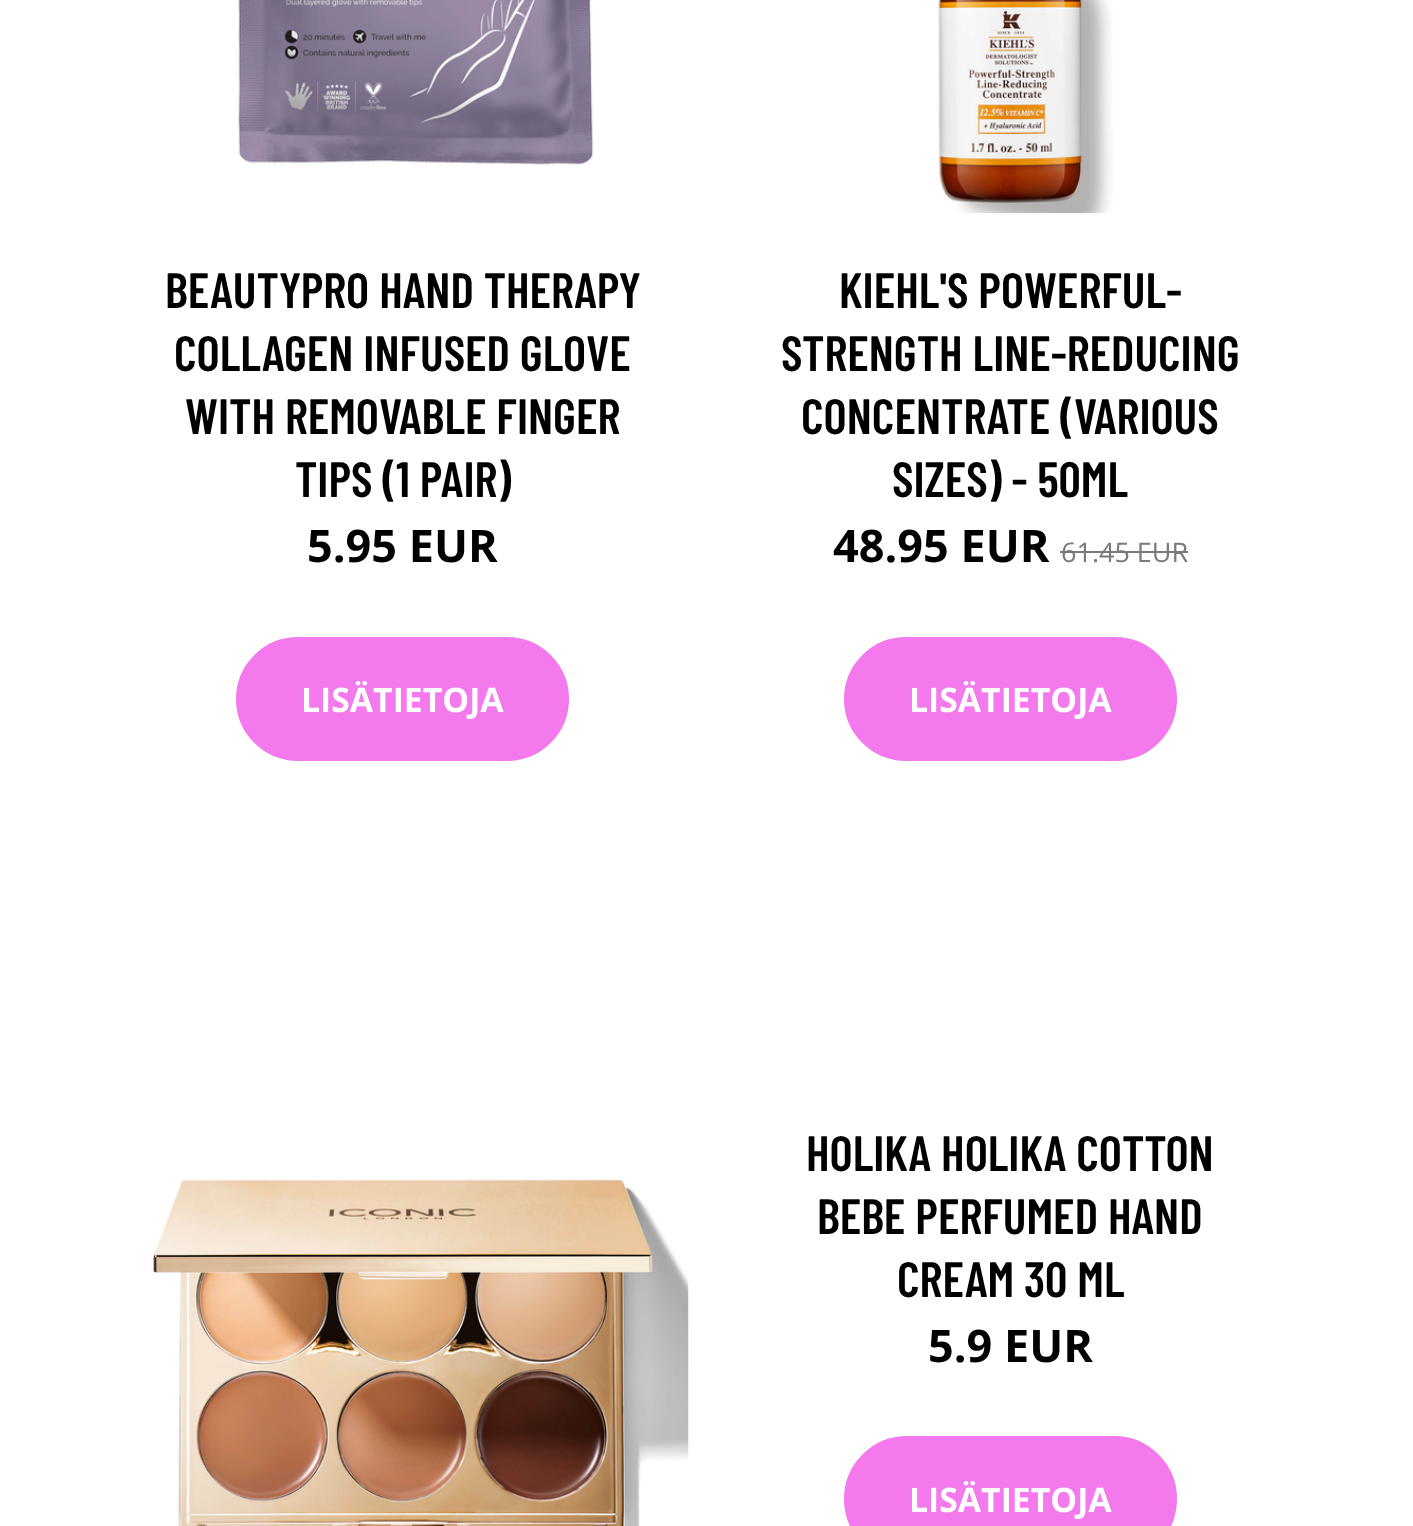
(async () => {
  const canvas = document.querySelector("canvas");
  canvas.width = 1413;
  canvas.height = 1526;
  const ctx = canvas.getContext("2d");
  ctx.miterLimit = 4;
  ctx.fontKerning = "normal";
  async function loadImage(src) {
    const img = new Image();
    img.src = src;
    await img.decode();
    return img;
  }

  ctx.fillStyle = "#ffffff";
  ctx.fillRect(0, 0, 1413, 1526);
  ctx.drawImage(await loadImage("img/1.png"), 238, 0, 356, 165);
  ctx.fillStyle = "#f479ed";
  ctx.beginPath();
  ctx.roundRect(237, 638, 331, 122, 61);
  ctx.fill();
  ctx.strokeStyle = "#f479ed";
  ctx.lineWidth = 2;
  ctx.stroke();
  ctx.drawImage(await loadImage("img/2.png"), 938, 0, 175, 214);
  ctx.fillStyle = "#7a7a7a";
  ctx.fillRect(1060, 551, 128, 2);
  ctx.fillStyle = "#f479ed";
  ctx.beginPath();
  ctx.roundRect(845, 638, 331, 122, 61);
  ctx.fill();
  ctx.stroke();
  ctx.drawImage(await loadImage("img/3.png"), 151, 1179, 538, 347);
  ctx.beginPath();
  ctx.roundRect(845, 1437, 331, 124, 62);
  ctx.fill();
  ctx.stroke();
  ctx.font = "600 49.5px Barlow Condensed";
  ctx.fillStyle = "#000000";
  for (const [text, x, y] of [
    ["BEAUTYPRO HAND THERAPY", 165, 308],
    ["COLLAGEN INFUSED GLOVE", 174, 371],
    ["WITH REMOVABLE FINGER", 185, 434],
    ["TIPS (1 PAIR)", 295, 497],
  ]) {
    ctx.fillText(text, x, y);
  }
  ctx.font = "bold 45px Open Sans";
  ctx.fillText("5.95 EUR", 307, 562);
  ctx.font = "bold 33.75px Open Sans";
  ctx.fillStyle = "#ffffff";
  ctx.fillText("LISÄTIETOJA", 301, 712);
  ctx.font = "600 49.5px Barlow Condensed";
  ctx.fillStyle = "#000000";
  for (const [text, x, y] of [
    ["KIEHL'S POWERFUL-", 839, 308],
    ["STRENGTH LINE-REDUCING", 781, 371],
    ["CONCENTRATE (VARIOUS", 801, 434],
    ["SIZES) - 50ML", 892, 497],
  ]) {
    ctx.fillText(text, x, y);
  }
  ctx.font = "bold 45px Open Sans";
  ctx.fillText("48.95 EUR", 833, 562);
  ctx.font = "27px Open Sans";
  ctx.fillStyle = "#7a7a7a";
  ctx.fillText("61.45 EUR", 1061, 562);
  ctx.font = "bold 33.75px Open Sans";
  ctx.fillStyle = "#ffffff";
  ctx.fillText("LISÄTIETOJA", 909, 712);
  ctx.font = "600 49.5px Barlow Condensed";
  ctx.fillStyle = "#000000";
  for (const [text, x, y] of [
    ["HOLIKA HOLIKA COTTON", 806, 1171],
    ["BEBE PERFUMED HAND", 817, 1234],
    ["CREAM 30 ML", 897, 1297],
  ]) {
    ctx.fillText(text, x, y);
  }
  ctx.font = "bold 45px Open Sans";
  ctx.fillText("5.9 EUR", 928, 1362);
  ctx.font = "bold 33.75px Open Sans";
  ctx.fillStyle = "#ffffff";
  ctx.fillText("LISÄTIETOJA", 909, 1512);
})();
